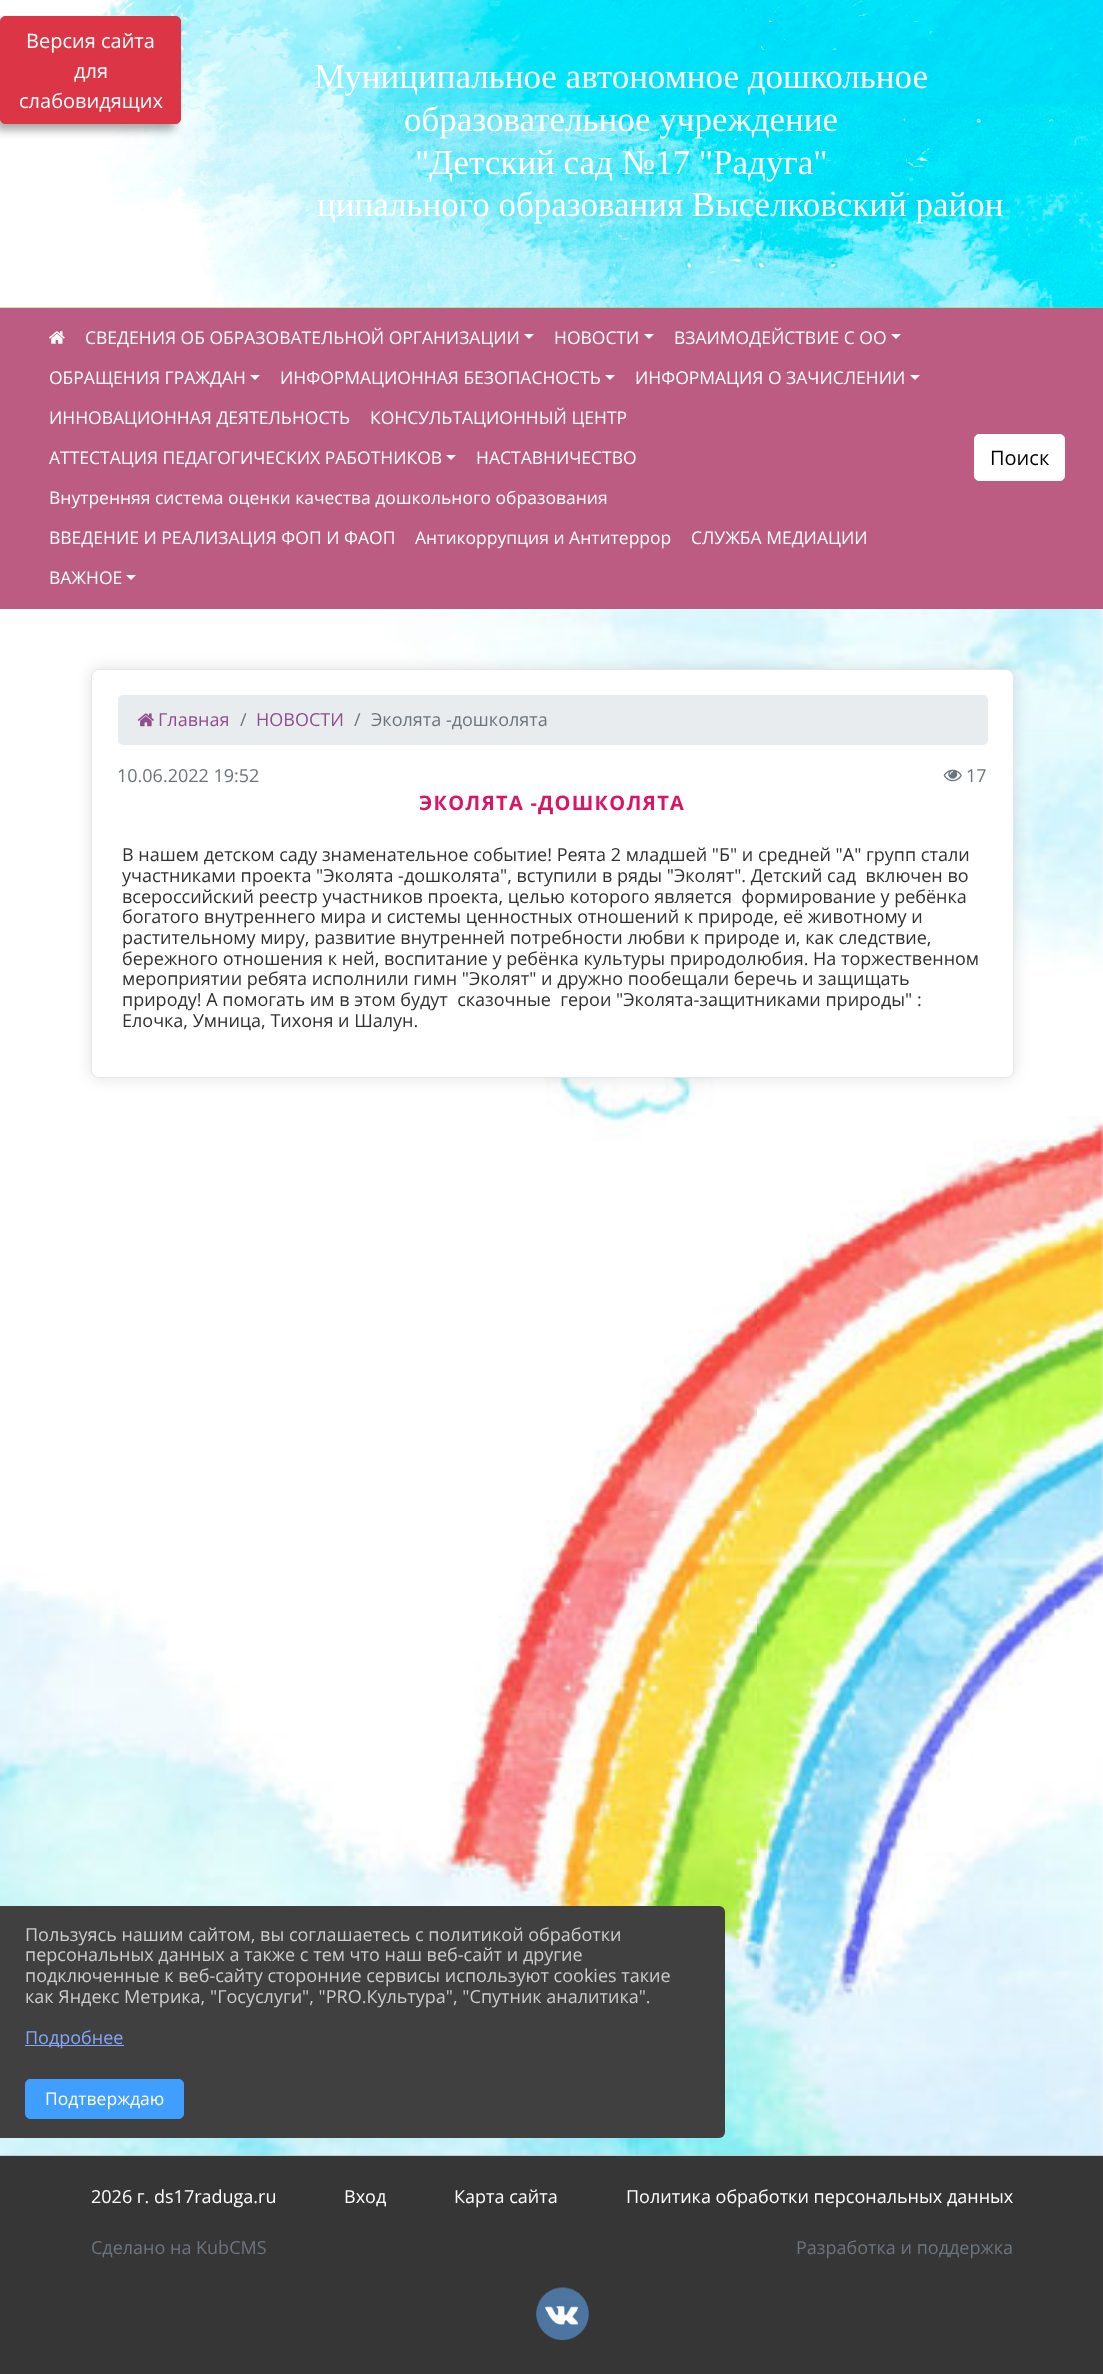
(async () => {
  const canvas = document.querySelector("canvas");
  canvas.width = 1103;
  canvas.height = 2374;
  const ctx = canvas.getContext("2d");
  ctx.miterLimit = 4;
  ctx.fontKerning = "normal";
  async function loadImage(src) {
    const img = new Image();
    img.src = src;
    await img.decode();
    return img;
  }
  let path;

  ctx.fillStyle = "#ffffff";
  ctx.fillRect(0, 0, 1103, 2374);
  ctx.drawImage(await loadImage("img/1.png"), 0, 609, 1103, 1546);
  ctx.fillStyle = "#a7cb45";
  ctx.fillRect(0, 307, 1103, 1);
  ctx.drawImage(await loadImage("img/2.png"), 0, 0, 1103, 308);
  ctx.fillStyle = "rgba(0, 0, 0, 0.35)";
  ctx.filter = "blur(5px)";
  ctx.beginPath();
  ctx.roundRect(-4, 25, 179, 105, 4);
  ctx.fill();
  ctx.filter = "none";
  ctx.fillStyle = "#dc3545";
  ctx.beginPath();
  ctx.roundRect(0.5, 16.5, 180, 107, 4.5);
  ctx.fill();
  ctx.strokeStyle = "#dc3545";
  ctx.stroke();
  ctx.fillStyle = "#bc5c83";
  ctx.fillRect(0, 308, 1103, 301);
  ctx.drawImage(await loadImage("img/3.png"), 49, 331, 16, 13);
  ctx.fillStyle = "#ffffff";
  path = new Path2D("M524 334H534L529 339Z");
  ctx.fill(path);
  path = new Path2D("M644 334H654L649 339Z");
  ctx.fill(path);
  path = new Path2D("M891 334H901L896 339Z");
  ctx.fill(path);
  path = new Path2D("M250 375H260L255 380Z");
  ctx.fill(path);
  path = new Path2D("M605 375H615L610 380Z");
  ctx.fill(path);
  path = new Path2D("M910 375H920L915 380Z");
  ctx.fill(path);
  path = new Path2D("M446 455H456L451 460Z");
  ctx.fill(path);
  path = new Path2D("M126 575H136L131 580Z");
  ctx.fill(path);
  ctx.beginPath();
  ctx.roundRect(974.5, 434.5, 90, 46, 4.5);
  ctx.fill();
  ctx.strokeStyle = "#ffffff";
  ctx.stroke();
  ctx.fillStyle = "rgba(0, 0, 0, 0.12)";
  ctx.filter = "blur(7.5px)";
  ctx.beginPath();
  ctx.roundRect(91, 669, 923, 409, 8);
  ctx.fill();
  ctx.filter = "none";
  ctx.fillStyle = "#ffffff";
  ctx.beginPath();
  ctx.roundRect(91.5, 669.5, 922, 408, 7.5);
  ctx.fill();
  ctx.strokeStyle = "#e4e7ed";
  ctx.stroke();
  ctx.fillStyle = "#e9ecef";
  ctx.beginPath();
  ctx.roundRect(118, 695, 870, 50, 5);
  ctx.fill();
  ctx.drawImage(await loadImage("img/4.png"), 137, 713, 17, 14);
  ctx.drawImage(await loadImage("img/5.png"), 943, 769, 19, 13);
  ctx.fillStyle = "#373636";
  ctx.fillRect(0, 2156, 1103, 218);
  ctx.fillStyle = "#cccccc";
  ctx.fillRect(0, 2155, 1103, 1);
  ctx.drawImage(await loadImage("img/6.png"), 536, 2287, 53, 53);
  ctx.fillStyle = "#404040";
  ctx.beginPath();
  ctx.roundRect(0, 1906, 725, 232, [0, 6, 6, 0]);
  ctx.fill();
  ctx.fillStyle = "#85a6f9";
  ctx.fillRect(25, 2045, 99, 1);
  ctx.fillStyle = "#409eff";
  ctx.beginPath();
  ctx.roundRect(25.5, 2079.5, 158, 39, 4.5);
  ctx.fill();
  ctx.strokeStyle = "#409eff";
  ctx.stroke();
  ctx.font = "20px Open Sans";
  ctx.fillStyle = "#ffffff";
  for (const [text, x, y] of [
    ["Версия сайта", 26, 48],
    ["для", 74, 78],
    ["слабовидящих", 19, 108],
  ]) {
    ctx.fillText(text, x, y);
  }
  ctx.font = "35px Liberation Serif";
  for (const [text, x, y] of [
    ["Муниципальное автономное дошкольное", 314, 88],
    ["образовательное учреждение", 404, 131],
    ["\"Детский сад №17 \"Радуга\"", 415, 174],
    ["ципального образования Выселковский район", 317, 216],
  ]) {
    ctx.fillText(text, x, y);
  }
  ctx.font = "17.5px Open Sans";
  for (const [text, x, y] of [
    ["СВЕДЕНИЯ ОБ ОБРАЗОВАТЕЛЬНОЙ ОРГАНИЗАЦИИ", 85, 344],
    ["НОВОСТИ", 554, 344],
    ["ВЗАИМОДЕЙСТВИЕ С ОО", 674, 344],
    ["ОБРАЩЕНИЯ ГРАЖДАН", 49, 384],
    ["ИНФОРМАЦИОННАЯ БЕЗОПАСНОСТЬ", 280, 384],
    ["ИНФОРМАЦИЯ О ЗАЧИСЛЕНИИ", 635, 384],
    ["ИННОВАЦИОННАЯ ДЕЯТЕЛЬНОСТЬ", 49, 424],
    ["КОНСУЛЬТАЦИОННЫЙ ЦЕНТР", 370, 424],
    ["АТТЕСТАЦИЯ ПЕДАГОГИЧЕСКИХ РАБОТНИКОВ", 49, 464],
    ["НАСТАВНИЧЕСТВО", 476, 464],
    ["Внутренняя система оценки качества дошкольного образования", 49, 504],
    ["ВВЕДЕНИЕ И РЕАЛИЗАЦИЯ ФОП И ФАОП", 49, 544],
    ["Антикоррупция и Антитеррор", 415, 544],
    ["СЛУЖБА МЕДИАЦИИ", 691, 544],
    ["ВАЖНОЕ", 49, 584],
  ]) {
    ctx.fillText(text, x, y);
  }
  ctx.font = "20px Open Sans";
  ctx.fillStyle = "#000000";
  ctx.fillText("Поиск", 990, 465);
  ctx.font = "18px Open Sans";
  ctx.fillStyle = "#914d8c";
  ctx.fillText("Главная", 158, 726);
  ctx.fillStyle = "#6c757d";
  ctx.fillText("/", 240, 726);
  ctx.fillStyle = "#914d8c";
  ctx.fillText("НОВОСТИ", 256, 726);
  ctx.fillStyle = "#6c757d";
  for (const [text, x, y] of [
    ["/", 354, 726],
    ["Эколята -дошколята", 371, 726],
    ["10.06.2022 19:52", 117, 782],
    ["17", 966, 782],
  ]) {
    ctx.fillText(text, x, y);
  }
  ctx.letterSpacing = "1.25px";
  ctx.font = "bold 20px Open Sans";
  ctx.fillStyle = "#da1564";
  ctx.fillText("ЭКОЛЯТА -ДОШКОЛЯТА", 419, 810);
  ctx.letterSpacing = "0px";
  ctx.font = "18px Open Sans";
  ctx.fillStyle = "#303133";
  for (const [text, x, y] of [
    ["В нашем детском саду знаменательное событие! Реята 2 младшей \"Б\" и средней \"А\" групп стали", 122, 861],
    ["участниками проекта \"Эколята -дошколята\", вступили в ряды \"Эколят\". Детский сад  включен во", 122, 882],
    ["всероссийский реестр участников проекта, целью которого является  формирование у ребёнка", 122, 903],
    ["богатого внутреннего мира и системы ценностных отношений к природе, её животному и", 122, 923],
    ["растительному миру, развитие внутренней потребности любви к природе и, как следствие,", 122, 944],
    ["бережного отношения к ней, воспитание у ребёнка культуры природолюбия. На торжественном", 122, 965],
    ["мероприятии ребята исполнили гимн \"Эколят\" и дружно пообещали беречь и защищать", 122, 985],
    ["природу! А помогать им в этом будут  сказочные  герои \"Эколята-защитниками природы\" :", 122, 1006],
    ["Елочка, Умница, Тихоня и Шалун.", 122, 1027],
  ]) {
    ctx.fillText(text, x, y);
  }
  ctx.fillStyle = "#ffffff";
  for (const [text, x, y] of [
    ["2026 г. ds17raduga.ru", 91, 2203],
    ["Вход", 344, 2203],
    ["Карта сайта", 454, 2203],
    ["Политика обработки персональных данных", 626, 2203],
  ]) {
    ctx.fillText(text, x, y);
  }
  ctx.fillStyle = "#6c757d";
  ctx.fillText("Сделано на KubCMS", 91, 2254);
  ctx.fillText("Разработка и поддержка", 796, 2254);
  ctx.fillStyle = "#cccccc";
  for (const [text, x, y] of [
    ["Пользуясь нашим сайтом, вы соглашаетесь с политикой обработки", 25, 1941],
    ["персональных данных а также с тем что наш веб-сайт и другие", 25, 1961],
    ["подключенные к веб-сайту сторонние сервисы используют cookies такие", 25, 1982],
    ["как Яндекс Метрика, \"Госуслуги\", \"PRO.Культура\", \"Спутник аналитика\".", 25, 2003],
  ]) {
    ctx.fillText(text, x, y);
  }
  ctx.fillStyle = "#85a6f9";
  ctx.fillText("Подробнее", 25, 2044);
  ctx.font = "17.5px Open Sans";
  ctx.fillStyle = "#ffffff";
  ctx.fillText("Подтверждаю", 45, 2105);
})();
